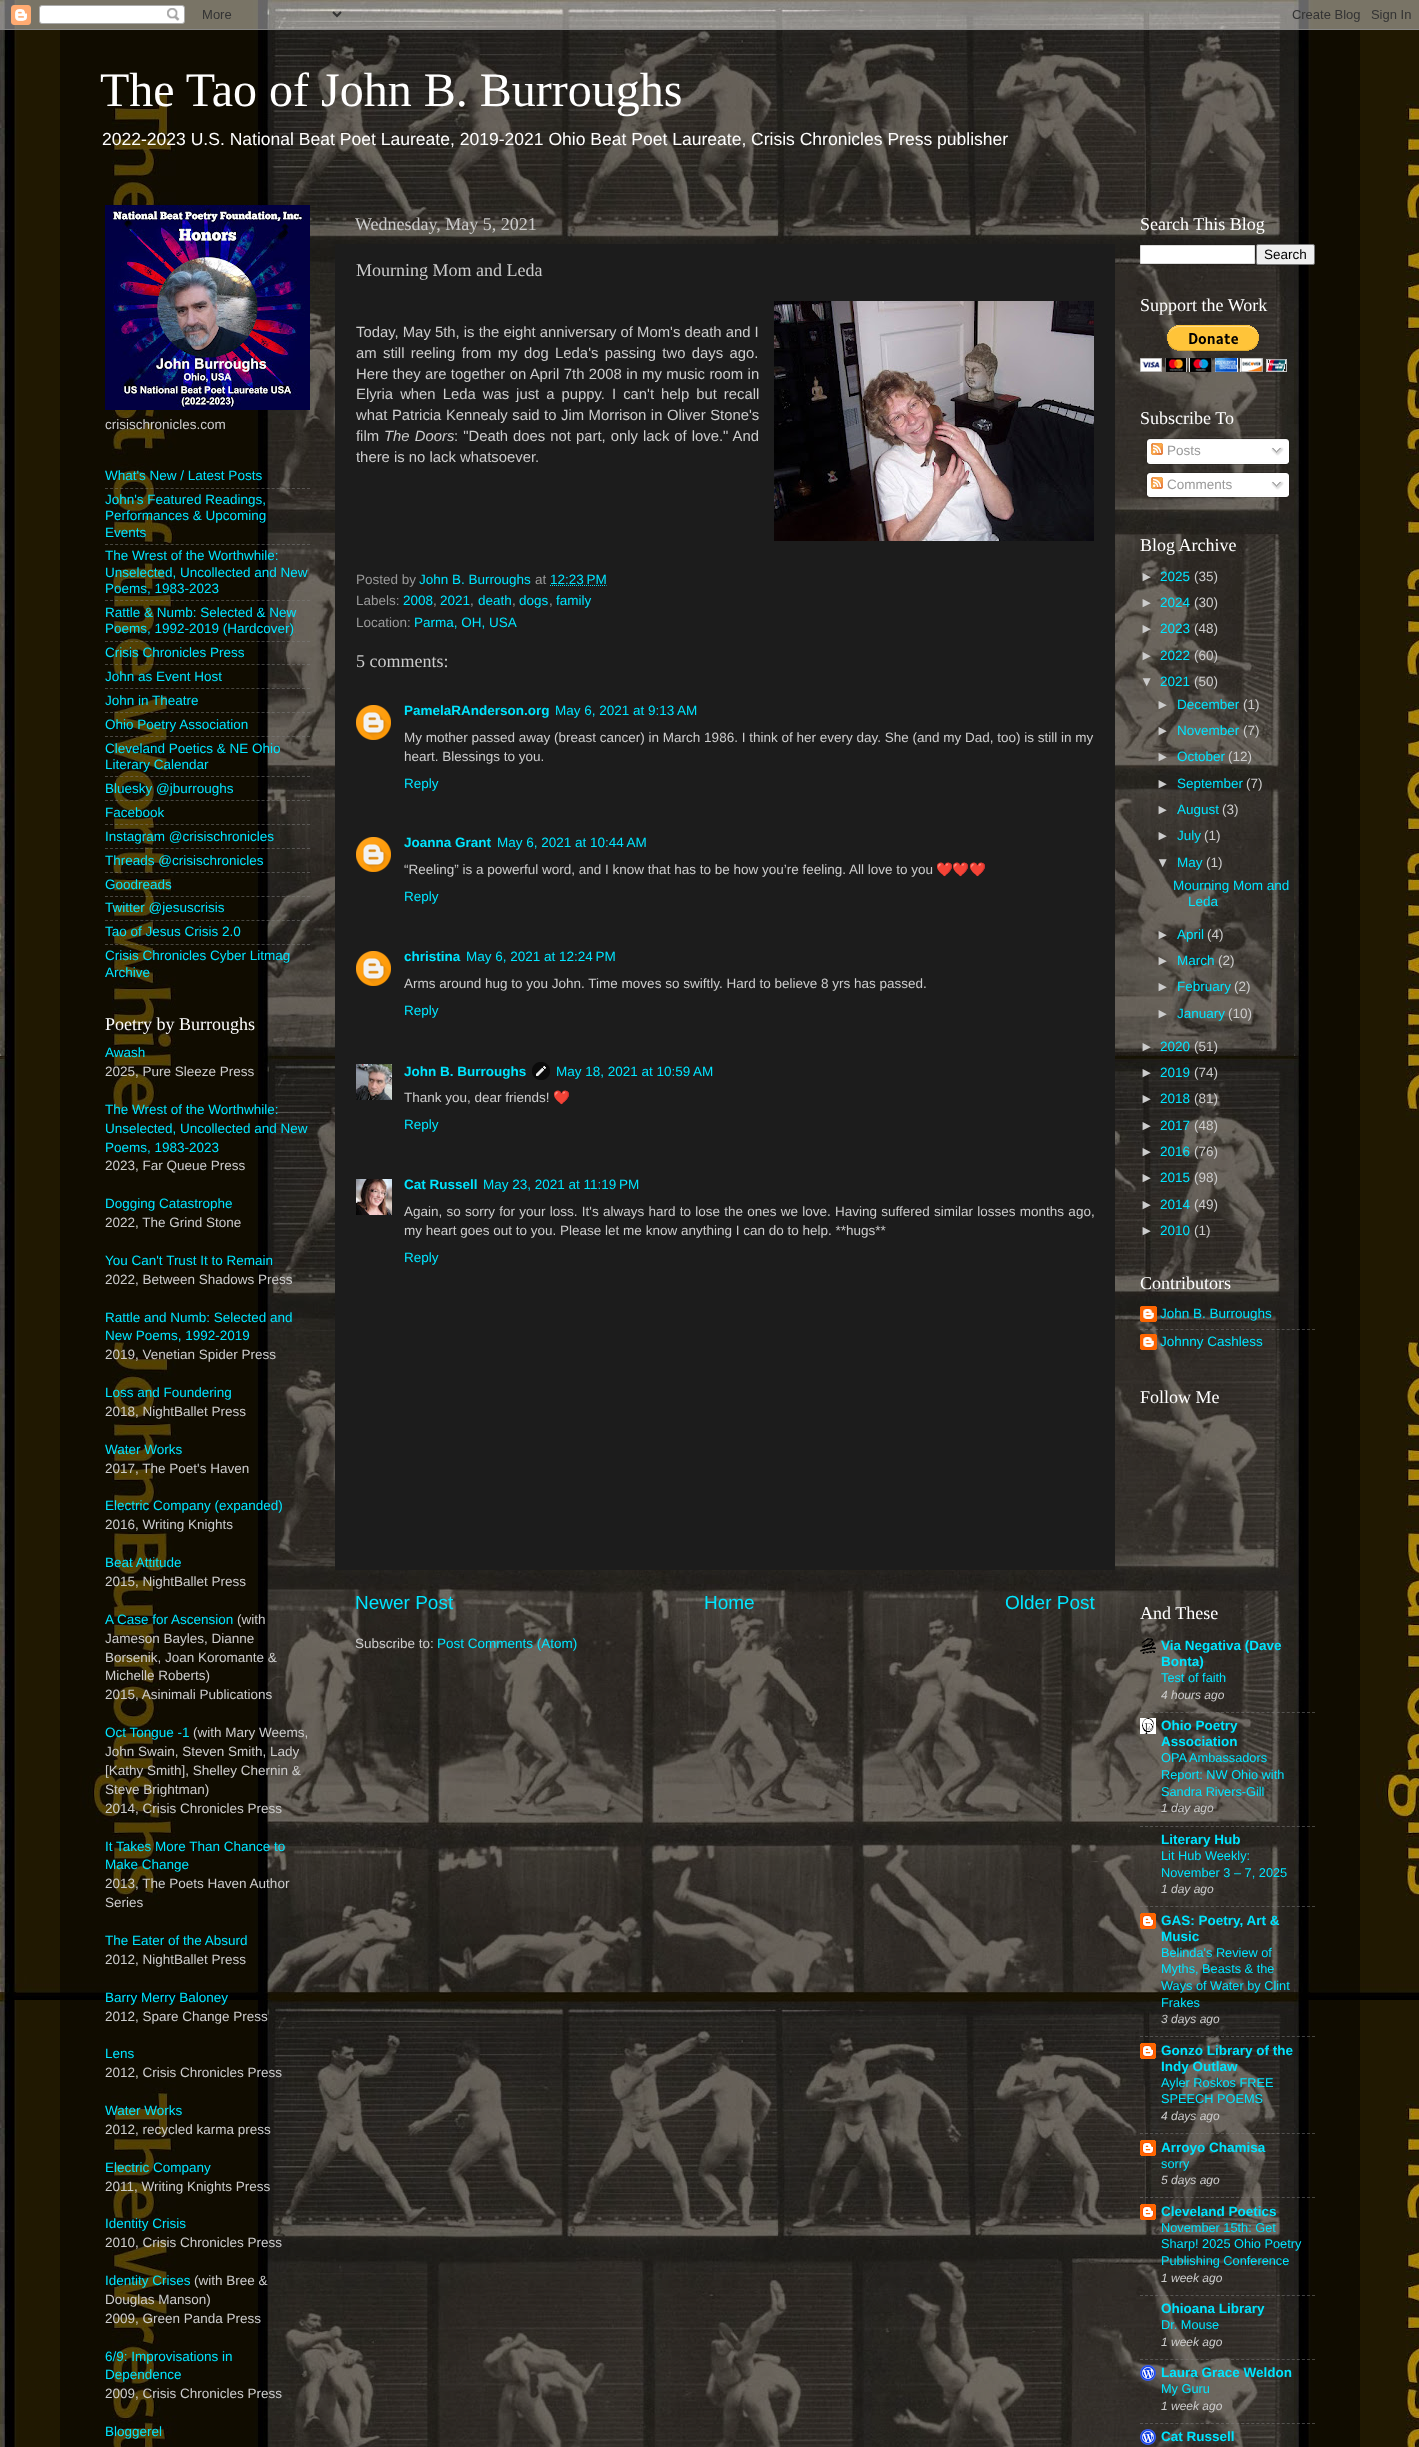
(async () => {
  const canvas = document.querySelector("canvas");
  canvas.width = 1419;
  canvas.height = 2447;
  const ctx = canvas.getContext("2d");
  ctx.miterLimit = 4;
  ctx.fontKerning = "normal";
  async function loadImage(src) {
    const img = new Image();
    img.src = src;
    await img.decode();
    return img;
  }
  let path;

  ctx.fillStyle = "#ffffff";
  ctx.fillRect(0, 0, 1419, 2447);
  ctx.drawImage(await loadImage("img/1.png"), 0, 0, 1419, 2447);
  ctx.drawImage(await loadImage("img/2.png"), 0, 0, 1419, 30);
  ctx.drawImage(await loadImage("img/3.png"), 105, 205, 205, 205);
  path = new Path2D("M105 488.5H310");
  ctx.strokeStyle = "rgba(128, 128, 128, 0.5)";
  ctx.setLineDash([3, 2.05]);
  ctx.stroke(path);
  path = new Path2D("M105 544.5H310");
  ctx.stroke(path);
  path = new Path2D("M105 600.5H310");
  ctx.stroke(path);
  path = new Path2D("M105 641.5H310");
  ctx.stroke(path);
  path = new Path2D("M105 664.5H310");
  ctx.stroke(path);
  path = new Path2D("M105 688.5H310");
  ctx.stroke(path);
  path = new Path2D("M105 712.5H310");
  ctx.stroke(path);
  path = new Path2D("M105 736.5H310");
  ctx.stroke(path);
  path = new Path2D("M105 776.5H310");
  ctx.stroke(path);
  path = new Path2D("M105 800.5H310");
  ctx.stroke(path);
  path = new Path2D("M105 824.5H310");
  ctx.stroke(path);
  path = new Path2D("M105 848.5H310");
  ctx.stroke(path);
  path = new Path2D("M105 872.5H310");
  ctx.stroke(path);
  path = new Path2D("M105 896.5H310");
  ctx.stroke(path);
  path = new Path2D("M105 920.5H310");
  ctx.stroke(path);
  path = new Path2D("M105 944.5H310");
  ctx.stroke(path);
  ctx.fillStyle = "#1c1c1c";
  ctx.fillRect(335, 244, 780, 1326);
  ctx.drawImage(await loadImage("img/4.png"), 774, 301, 320, 240);
  path = new Path2D("M550 585.5H606.5");
  ctx.strokeStyle = "#00e5ff";
  ctx.setLineDash([1, 1]);
  ctx.stroke(path);
  ctx.drawImage(await loadImage("img/5.png"), 356, 705, 35, 35);
  ctx.drawImage(await loadImage("img/5.png"), 356, 837, 35, 35);
  ctx.drawImage(await loadImage("img/5.png"), 356, 951, 35, 35);
  ctx.drawImage(await loadImage("img/6.png"), 356, 1064, 36, 36);
  ctx.drawImage(await loadImage("img/7.png"), 532, 1062, 18, 18);
  ctx.drawImage(await loadImage("img/8.png"), 356, 1179, 36, 36);
  ctx.fillStyle = "#ffffff";
  ctx.beginPath();
  ctx.rect(1140.5, 245.5, 114, 18);
  ctx.fill();
  ctx.strokeStyle = "#dddddd";
  ctx.setLineDash([]);
  ctx.stroke();
  ctx.fillStyle = "#efefef";
  ctx.beginPath();
  ctx.roundRect(1256.5, 244.5, 58, 20, 1.5);
  ctx.fill();
  ctx.strokeStyle = "#767676";
  ctx.stroke();
  ctx.drawImage(await loadImage("img/9.png"), 1140, 325, 147, 47);
  ctx.drawImage(await loadImage("img/10.png"), 1146, 438, 144, 24);
  ctx.drawImage(await loadImage("img/11.png"), 1151, 443, 12, 12);
  ctx.drawImage(await loadImage("img/12.png"), 1271, 447, 13, 9);
  ctx.drawImage(await loadImage("img/13.png"), 1146, 462, 143, 3);
  ctx.drawImage(await loadImage("img/14.png"), 1146, 472, 144, 23);
  ctx.drawImage(await loadImage("img/11.png"), 1151, 477, 12, 12);
  ctx.drawImage(await loadImage("img/12.png"), 1271, 481, 13, 9);
  ctx.drawImage(await loadImage("img/15.png"), 1146, 495, 143, 3);
  ctx.drawImage(await loadImage("img/16.png"), 1140, 1306, 17, 16);
  path = new Path2D("M1140 1329.5H1315");
  ctx.strokeStyle = "rgba(128, 128, 128, 0.5)";
  ctx.setLineDash([3, 2.06]);
  ctx.stroke(path);
  ctx.drawImage(await loadImage("img/17.png"), 1140, 1334, 17, 16);
  ctx.drawImage(await loadImage("img/18.png"), 1140, 1638, 16, 16);
  path = new Path2D("M1140 1712.5H1315");
  ctx.stroke(path);
  ctx.drawImage(await loadImage("img/19.png"), 1140, 1718, 16, 16);
  path = new Path2D("M1140 1826.5H1315");
  ctx.stroke(path);
  path = new Path2D("M1140 1906.5H1315");
  ctx.stroke(path);
  ctx.drawImage(await loadImage("img/20.png"), 1140, 1913, 16, 16);
  path = new Path2D("M1140 2036.5H1315");
  ctx.stroke(path);
  ctx.drawImage(await loadImage("img/21.png"), 1140, 2043, 16, 16);
  path = new Path2D("M1140 2133.5H1315");
  ctx.stroke(path);
  ctx.drawImage(await loadImage("img/22.png"), 1140, 2140, 16, 16);
  path = new Path2D("M1140 2197.5H1315");
  ctx.stroke(path);
  ctx.drawImage(await loadImage("img/23.png"), 1140, 2204, 16, 16);
  path = new Path2D("M1140 2295.5H1315");
  ctx.stroke(path);
  path = new Path2D("M1140 2359.5H1315");
  ctx.stroke(path);
  ctx.drawImage(await loadImage("img/24.png"), 1140, 2365, 16, 16);
  path = new Path2D("M1140 2423.5H1315");
  ctx.stroke(path);
  ctx.drawImage(await loadImage("img/25.png"), 1140, 2429, 16, 16);
  ctx.font = "48px Liberation Serif";
  ctx.fillStyle = "#ffffff";
  ctx.fillText("The Tao of John B. Burroughs", 100, 106);
  ctx.font = "17.55px Liberation Sans";
  ctx.fillText("2022-2023 U.S. National Beat Poet Laureate, 2019-2021 Ohio Beat Poet Laureate,", 102, 145);
  ctx.fillText("Crisis Chronicles Press publisher", 751, 145);
  ctx.font = "13.5px Liberation Sans";
  ctx.fillStyle = "#cccccc";
  ctx.fillText("crisischronicles.com", 105, 429);
  ctx.fillStyle = "#00e5ff";
  for (const [text, x, y] of [
    ["What's New / Latest Posts", 105, 480],
    ["John's Featured Readings,", 105, 504],
    ["Performances & Upcoming", 105, 520],
    ["Events", 105, 537],
    ["The Wrest of the Worthwhile:", 105, 560],
    ["Unselected, Uncollected and New", 105, 577],
    ["Poems, 1983-2023", 105, 593],
    ["Rattle & Numb: Selected & New", 105, 617],
    ["Poems, 1992-2019 (Hardcover)", 105, 633],
    ["Crisis Chronicles Press", 105, 657],
    ["John as Event Host", 105, 681],
    ["John in Theatre", 105, 705],
    ["Ohio Poetry Association", 105, 729],
    ["Cleveland Poetics & NE Ohio", 105, 753],
    ["Literary Calendar", 105, 769],
    ["Bluesky @jburroughs", 105, 793],
    ["Facebook", 105, 817],
    ["Instagram @crisischronicles", 105, 841],
    ["Threads @crisischronicles", 105, 865],
    ["Goodreads", 105, 889],
    ["Twitter @jesuscrisis", 105, 912],
    ["Tao of Jesus Crisis 2.0", 105, 936],
    ["Crisis Chronicles Cyber Litmag", 105, 960],
    ["Archive", 105, 977],
  ]) {
    ctx.fillText(text, x, y);
  }
  ctx.font = "18px Liberation Serif";
  ctx.fillStyle = "#ffffff";
  ctx.fillText("Poetry by Burroughs", 105, 1030);
  ctx.font = "13.5px Liberation Sans";
  ctx.fillStyle = "#00e5ff";
  ctx.fillText("Awash", 105, 1057);
  ctx.fillStyle = "#cccccc";
  ctx.fillText("2025, Pure Sleeze Press", 105, 1076);
  ctx.fillStyle = "#00e5ff";
  for (const [text, x, y] of [
    ["The Wrest of the Worthwhile:", 105, 1114],
    ["Unselected, Uncollected and New", 105, 1133],
    ["Poems, 1983-2023", 105, 1152],
  ]) {
    ctx.fillText(text, x, y);
  }
  ctx.fillStyle = "#cccccc";
  ctx.fillText("2023, Far Queue Press", 105, 1170);
  ctx.fillStyle = "#00e5ff";
  ctx.fillText("Dogging Catastrophe", 105, 1208);
  ctx.fillStyle = "#cccccc";
  ctx.fillText("2022, The Grind Stone", 105, 1227);
  ctx.fillStyle = "#00e5ff";
  ctx.fillText("You Can't Trust It to Remain", 105, 1265);
  ctx.fillStyle = "#cccccc";
  ctx.fillText("2022, Between Shadows Press", 105, 1284);
  ctx.fillStyle = "#00e5ff";
  ctx.fillText("Rattle and Numb: Selected and", 105, 1322);
  ctx.fillText("New Poems, 1992-2019", 105, 1340);
  ctx.fillStyle = "#cccccc";
  ctx.fillText("2019, Venetian Spider Press", 105, 1359);
  ctx.fillStyle = "#00e5ff";
  ctx.fillText("Loss and Foundering", 105, 1397);
  ctx.fillStyle = "#cccccc";
  ctx.fillText("2018, NightBallet Press", 105, 1416);
  ctx.fillStyle = "#00e5ff";
  ctx.fillText("Water Works", 105, 1454);
  ctx.fillStyle = "#cccccc";
  ctx.fillText("2017, The Poet's Haven", 105, 1473);
  ctx.fillStyle = "#00e5ff";
  ctx.fillText("Electric Company (expanded)", 105, 1510);
  ctx.fillStyle = "#cccccc";
  ctx.fillText("2016, Writing Knights", 105, 1529);
  ctx.fillStyle = "#00e5ff";
  ctx.fillText("Beat Attitude", 105, 1567);
  ctx.fillStyle = "#cccccc";
  ctx.fillText("2015, NightBallet Press", 105, 1586);
  ctx.fillStyle = "#00e5ff";
  ctx.fillText("A Case for Ascension", 105, 1624);
  ctx.fillStyle = "#cccccc";
  for (const [text, x, y] of [
    ["(with", 237, 1624],
    ["Jameson Bayles, Dianne", 105, 1643],
    ["Borsenik, Joan Koromante &", 105, 1662],
    ["Michelle Roberts)", 105, 1680],
    ["2015, Asinimali Publications", 105, 1699],
  ]) {
    ctx.fillText(text, x, y);
  }
  ctx.fillStyle = "#00e5ff";
  ctx.fillText("Oct Tongue -1", 105, 1737);
  ctx.fillStyle = "#cccccc";
  for (const [text, x, y] of [
    ["(with Mary Weems,", 193, 1737],
    ["John Swain, Steven Smith, Lady", 105, 1756],
    ["[Kathy Smith], Shelley Chernin &", 105, 1775],
    ["Steve Brightman)", 105, 1794],
    ["2014, Crisis Chronicles Press", 105, 1813],
  ]) {
    ctx.fillText(text, x, y);
  }
  ctx.fillStyle = "#00e5ff";
  ctx.fillText("It Takes More Than Chance to", 105, 1851);
  ctx.fillText("Make Change", 105, 1869);
  ctx.fillStyle = "#cccccc";
  ctx.fillText("2013, The Poets Haven Author", 105, 1888);
  ctx.fillText("Series", 105, 1907);
  ctx.fillStyle = "#00e5ff";
  ctx.fillText("The Eater of the Absurd", 105, 1945);
  ctx.fillStyle = "#cccccc";
  ctx.fillText("2012, NightBallet Press", 105, 1964);
  ctx.fillStyle = "#00e5ff";
  ctx.fillText("Barry Merry Baloney", 105, 2002);
  ctx.fillStyle = "#cccccc";
  ctx.fillText("2012, Spare Change Press", 105, 2021);
  ctx.fillStyle = "#00e5ff";
  ctx.fillText("Lens", 105, 2058);
  ctx.fillStyle = "#cccccc";
  ctx.fillText("2012, Crisis Chronicles Press", 105, 2077);
  ctx.fillStyle = "#00e5ff";
  ctx.fillText("Water Works", 105, 2115);
  ctx.fillStyle = "#cccccc";
  ctx.fillText("2012, recycled karma press", 105, 2134);
  ctx.fillStyle = "#00e5ff";
  ctx.fillText("Electric Company", 105, 2172);
  ctx.fillStyle = "#cccccc";
  ctx.fillText("2011, Writing Knights Press", 105, 2191);
  ctx.fillStyle = "#00e5ff";
  ctx.fillText("Identity Crisis", 105, 2228);
  ctx.fillStyle = "#cccccc";
  ctx.fillText("2010, Crisis Chronicles Press", 105, 2247);
  ctx.fillStyle = "#00e5ff";
  ctx.fillText("Identity Crises", 105, 2285);
  ctx.fillStyle = "#cccccc";
  for (const [text, x, y] of [
    ["(with Bree &", 194, 2285],
    ["Douglas Manson)", 105, 2304],
    ["2009, Green Panda Press", 105, 2323],
  ]) {
    ctx.fillText(text, x, y);
  }
  ctx.fillStyle = "#00e5ff";
  ctx.fillText("6/9: Improvisations in", 105, 2361);
  ctx.fillText("Dependence", 105, 2379);
  ctx.fillStyle = "#cccccc";
  ctx.fillText("2009, Crisis Chronicles Press", 105, 2398);
  ctx.fillStyle = "#00e5ff";
  ctx.fillText("Bloggerel", 105, 2436);
  ctx.font = "18px Liberation Serif";
  ctx.fillStyle = "#cccccc";
  ctx.fillText("Wednesday, May 5, 2021", 355, 230);
  ctx.fillText("Mourning Mom and Leda", 356, 276);
  ctx.font = "14.85px Liberation Sans";
  ctx.fillText("Today, May 5th, is the eight anniversary of Mom's death and I", 356, 337);
  ctx.wordSpacing = "2.25px";
  ctx.fillText("am still reeling from my dog Leda's passing two days ago.", 356, 358);
  ctx.wordSpacing = "0.25px";
  ctx.fillText("Here they are together on April 7th 2008 in my music room in", 356, 379);
  ctx.wordSpacing = "2.9px";
  ctx.fillText("Elyria when Leda was just a puppy. I can't help but recall", 356, 399);
  ctx.wordSpacing = "0.4px";
  ctx.fillText("what Patricia Kennealy said to Jim Morrison in Oliver Stone's", 356, 420);
  ctx.wordSpacing = "0px";
  ctx.fillText("film", 356, 441);
  ctx.wordSpacing = "1px";
  ctx.font = "italic 14.85px Liberation Sans";
  ctx.fillText("The Doors", 384, 441);
  ctx.wordSpacing = "0.9px";
  ctx.font = "14.85px Liberation Sans";
  ctx.fillText(": \"Death does not part, only lack of love.\" And", 454, 441);
  ctx.wordSpacing = "0px";
  ctx.fillText("there is no lack whatsoever.", 356, 462);
  ctx.font = "13.5px Liberation Sans";
  ctx.fillStyle = "#999999";
  ctx.fillText("Posted by", 356, 584);
  ctx.fillStyle = "#00e5ff";
  ctx.fillText("John B. Burroughs", 419, 584);
  ctx.fillStyle = "#999999";
  ctx.fillText("at", 535, 584);
  ctx.fillStyle = "#00e5ff";
  ctx.fillText("12:23 PM", 550, 584);
  ctx.fillStyle = "#999999";
  ctx.fillText("Labels:", 356, 605);
  ctx.fillStyle = "#00e5ff";
  ctx.fillText("2008", 403, 605);
  ctx.fillStyle = "#999999";
  ctx.fillText(",", 433, 605);
  ctx.fillStyle = "#00e5ff";
  ctx.fillText("2021", 440, 605);
  ctx.fillStyle = "#999999";
  ctx.fillText(",", 470, 605);
  ctx.fillStyle = "#00e5ff";
  ctx.fillText("death", 478, 605);
  ctx.fillStyle = "#999999";
  ctx.fillText(",", 512, 605);
  ctx.fillStyle = "#00e5ff";
  ctx.fillText("dogs", 519, 605);
  ctx.fillStyle = "#999999";
  ctx.fillText(",", 549, 605);
  ctx.fillStyle = "#00e5ff";
  ctx.fillText("family", 556, 605);
  ctx.fillStyle = "#999999";
  ctx.fillText("Location:", 356, 627);
  ctx.fillStyle = "#00e5ff";
  ctx.fillText("Parma, OH, USA", 414, 627);
  ctx.font = "18px Liberation Serif";
  ctx.fillStyle = "#cccccc";
  ctx.fillText("5 comments:", 356, 667);
  ctx.font = "bold 13.5px Liberation Sans";
  ctx.fillStyle = "#00e5ff";
  ctx.fillText("PamelaRAnderson.org", 404, 715);
  ctx.font = "13.5px Liberation Sans";
  ctx.fillText("May 6, 2021 at 9:13 AM", 555, 715);
  ctx.fillStyle = "#cccccc";
  ctx.fillText("My mother passed away (breast cancer) in March 1986. I think of her every day. She (and my Dad, too) is still in my", 404, 742);
  ctx.fillText("heart. Blessings to you.", 404, 761);
  ctx.fillStyle = "#00e5ff";
  ctx.fillText("Reply", 404, 788);
  ctx.font = "bold 13.5px Liberation Sans";
  ctx.fillText("Joanna Grant", 404, 847);
  ctx.font = "13.5px Liberation Sans";
  ctx.fillText("May 6, 2021 at 10:44 AM", 497, 847);
  ctx.fillStyle = "#cccccc";
  ctx.fillText("“Reeling” is a powerful word, and I know that has to be how you’re feeling. All love to you", 404, 874);
  ctx.font = "13.5px Noto Color Emoji";
  ctx.fillText("❤️❤️❤️", 936, 874);
  ctx.font = "13.5px Liberation Sans";
  ctx.fillStyle = "#00e5ff";
  ctx.fillText("Reply", 404, 901);
  ctx.font = "bold 13.5px Liberation Sans";
  ctx.fillText("christina", 404, 961);
  ctx.font = "13.5px Liberation Sans";
  ctx.fillText("May 6, 2021 at 12:24 PM", 466, 961);
  ctx.fillStyle = "#cccccc";
  ctx.fillText("Arms around hug to you John. Time moves so swiftly. Hard to believe 8 yrs has passed.", 404, 988);
  ctx.fillStyle = "#00e5ff";
  ctx.fillText("Reply", 404, 1015);
  ctx.font = "bold 13.5px Liberation Sans";
  ctx.fillText("John B. Burroughs", 404, 1076);
  ctx.font = "13.5px Liberation Sans";
  ctx.fillText("May 18, 2021 at 10:59 AM", 556, 1076);
  ctx.fillStyle = "#cccccc";
  ctx.fillText("Thank you, dear friends!", 404, 1102);
  ctx.font = "13.5px Noto Color Emoji";
  ctx.fillText("❤️", 553, 1102);
  ctx.font = "13.5px Liberation Sans";
  ctx.fillStyle = "#00e5ff";
  ctx.fillText("Reply", 404, 1129);
  ctx.font = "bold 13.5px Liberation Sans";
  ctx.fillText("Cat Russell", 404, 1189);
  ctx.font = "13.5px Liberation Sans";
  ctx.fillText("May 23, 2021 at 11:19 PM", 483, 1189);
  ctx.wordSpacing = "0.5px";
  ctx.fillStyle = "#cccccc";
  ctx.fillText("Again, so sorry for your loss. It's always hard to lose the ones we love. Having suffered similar losses months ago,", 404, 1216);
  ctx.wordSpacing = "0px";
  ctx.fillText("my heart goes out to you. Please let me know anything I can do to help. **hugs**", 404, 1235);
  ctx.fillStyle = "#00e5ff";
  ctx.fillText("Reply", 404, 1262);
  ctx.font = "19px Liberation Sans";
  for (const [text, x, y] of [
    ["Newer Post", 355, 1609],
    ["Home", 704, 1609],
    ["Older Post", 1005, 1609],
  ]) {
    ctx.fillText(text, x, y);
  }
  ctx.font = "13.5px Liberation Sans";
  ctx.fillStyle = "#cccccc";
  ctx.fillText("Subscribe to:", 355, 1648);
  ctx.fillStyle = "#00e5ff";
  ctx.fillText("Post Comments (Atom)", 437, 1648);
  ctx.font = "18px Liberation Serif";
  ctx.fillStyle = "#ffffff";
  ctx.fillText("Search This Blog", 1140, 230);
  ctx.font = "13.5px Liberation Sans";
  ctx.fillStyle = "#000000";
  ctx.fillText("Search", 1264, 259);
  ctx.font = "18px Liberation Serif";
  ctx.fillStyle = "#ffffff";
  ctx.fillText("Support the Work", 1140, 311);
  ctx.fillText("Subscribe To", 1140, 424);
  ctx.font = "13.5px Liberation Sans";
  ctx.fillStyle = "#999999";
  ctx.fillText("Posts", 1167, 455);
  ctx.fillText("Comments", 1167, 489);
  ctx.font = "18px Liberation Serif";
  ctx.fillStyle = "#ffffff";
  ctx.fillText("Blog Archive", 1140, 551);
  ctx.font = "13.5px Liberation Sans";
  ctx.fillStyle = "#cccccc";
  ctx.fillText("►", 1140, 581);
  ctx.fillStyle = "#00e5ff";
  ctx.fillText("2025", 1160, 581);
  ctx.fillStyle = "#cccccc";
  ctx.fillText("(35)", 1194, 581);
  ctx.fillText("►", 1140, 607);
  ctx.fillStyle = "#00e5ff";
  ctx.fillText("2024", 1160, 607);
  ctx.fillStyle = "#cccccc";
  ctx.fillText("(30)", 1194, 607);
  ctx.fillText("►", 1140, 633);
  ctx.fillStyle = "#00e5ff";
  ctx.fillText("2023", 1160, 633);
  ctx.fillStyle = "#cccccc";
  ctx.fillText("(48)", 1194, 633);
  ctx.fillText("►", 1140, 660);
  ctx.fillStyle = "#00e5ff";
  ctx.fillText("2022", 1160, 660);
  ctx.fillStyle = "#cccccc";
  ctx.fillText("(60)", 1194, 660);
  ctx.fillText("▼", 1140, 686);
  ctx.fillStyle = "#00e5ff";
  ctx.fillText("2021", 1160, 686);
  ctx.fillStyle = "#cccccc";
  ctx.fillText("(50)", 1194, 686);
  ctx.fillText("►", 1156, 709);
  ctx.fillStyle = "#00e5ff";
  ctx.fillText("December", 1177, 709);
  ctx.fillStyle = "#cccccc";
  ctx.fillText("(1)", 1243, 709);
  ctx.fillText("►", 1156, 735);
  ctx.fillStyle = "#00e5ff";
  ctx.fillText("November", 1177, 735);
  ctx.fillStyle = "#cccccc";
  ctx.fillText("(7)", 1243, 735);
  ctx.fillText("►", 1156, 761);
  ctx.fillStyle = "#00e5ff";
  ctx.fillText("October", 1177, 761);
  ctx.fillStyle = "#cccccc";
  ctx.fillText("(12)", 1228, 761);
  ctx.fillText("►", 1156, 788);
  ctx.fillStyle = "#00e5ff";
  ctx.fillText("September", 1177, 788);
  ctx.fillStyle = "#cccccc";
  ctx.fillText("(7)", 1246, 788);
  ctx.fillText("►", 1156, 814);
  ctx.fillStyle = "#00e5ff";
  ctx.fillText("August", 1177, 814);
  ctx.fillStyle = "#cccccc";
  ctx.fillText("(3)", 1222, 814);
  ctx.fillText("►", 1156, 840);
  ctx.fillStyle = "#00e5ff";
  ctx.fillText("July", 1177, 840);
  ctx.fillStyle = "#cccccc";
  ctx.fillText("(1)", 1204, 840);
  ctx.fillText("▼", 1156, 867);
  ctx.fillStyle = "#00e5ff";
  ctx.fillText("May", 1177, 867);
  ctx.fillStyle = "#cccccc";
  ctx.fillText("(1)", 1206, 867);
  ctx.fillStyle = "#00e5ff";
  ctx.fillText("Mourning Mom and", 1173, 890);
  ctx.fillText("Leda", 1188, 906);
  ctx.fillStyle = "#cccccc";
  ctx.fillText("►", 1156, 939);
  ctx.fillStyle = "#00e5ff";
  ctx.fillText("April", 1177, 939);
  ctx.fillStyle = "#cccccc";
  ctx.fillText("(4)", 1207, 939);
  ctx.fillText("►", 1156, 965);
  ctx.fillStyle = "#00e5ff";
  ctx.fillText("March", 1177, 965);
  ctx.fillStyle = "#cccccc";
  ctx.fillText("(2)", 1218, 965);
  ctx.fillText("►", 1156, 991);
  ctx.fillStyle = "#00e5ff";
  ctx.fillText("February", 1177, 991);
  ctx.fillStyle = "#cccccc";
  ctx.fillText("(2)", 1234, 991);
  ctx.fillText("►", 1156, 1018);
  ctx.fillStyle = "#00e5ff";
  ctx.fillText("January", 1177, 1018);
  ctx.fillStyle = "#cccccc";
  ctx.fillText("(10)", 1228, 1018);
  ctx.fillText("►", 1140, 1051);
  ctx.fillStyle = "#00e5ff";
  ctx.fillText("2020", 1160, 1051);
  ctx.fillStyle = "#cccccc";
  ctx.fillText("(51)", 1194, 1051);
  ctx.fillText("►", 1140, 1077);
  ctx.fillStyle = "#00e5ff";
  ctx.fillText("2019", 1160, 1077);
  ctx.fillStyle = "#cccccc";
  ctx.fillText("(74)", 1194, 1077);
  ctx.fillText("►", 1140, 1103);
  ctx.fillStyle = "#00e5ff";
  ctx.fillText("2018", 1160, 1103);
  ctx.fillStyle = "#cccccc";
  ctx.fillText("(81)", 1194, 1103);
  ctx.fillText("►", 1140, 1130);
  ctx.fillStyle = "#00e5ff";
  ctx.fillText("2017", 1160, 1130);
  ctx.fillStyle = "#cccccc";
  ctx.fillText("(48)", 1194, 1130);
  ctx.fillText("►", 1140, 1156);
  ctx.fillStyle = "#00e5ff";
  ctx.fillText("2016", 1160, 1156);
  ctx.fillStyle = "#cccccc";
  ctx.fillText("(76)", 1194, 1156);
  ctx.fillText("►", 1140, 1182);
  ctx.fillStyle = "#00e5ff";
  ctx.fillText("2015", 1160, 1182);
  ctx.fillStyle = "#cccccc";
  ctx.fillText("(98)", 1194, 1182);
  ctx.fillText("►", 1140, 1209);
  ctx.fillStyle = "#00e5ff";
  ctx.fillText("2014", 1160, 1209);
  ctx.fillStyle = "#cccccc";
  ctx.fillText("(49)", 1194, 1209);
  ctx.fillText("►", 1140, 1235);
  ctx.fillStyle = "#00e5ff";
  ctx.fillText("2010", 1160, 1235);
  ctx.fillStyle = "#cccccc";
  ctx.fillText("(1)", 1194, 1235);
  ctx.font = "18px Liberation Serif";
  ctx.fillStyle = "#ffffff";
  ctx.fillText("Contributors", 1140, 1289);
  ctx.font = "13.5px Liberation Sans";
  ctx.fillStyle = "#00e5ff";
  ctx.fillText("John B. Burroughs", 1160, 1318);
  ctx.fillText("Johnny Cashless", 1160, 1346);
  ctx.font = "18px Liberation Serif";
  ctx.fillStyle = "#ffffff";
  ctx.fillText("Follow Me", 1140, 1403);
  ctx.fillText("And These", 1140, 1619);
  ctx.font = "bold 13.5px Liberation Sans";
  ctx.fillStyle = "#00e5ff";
  ctx.fillText("Via Negativa (Dave", 1161, 1650);
  ctx.fillText("Bonta)", 1161, 1666);
  ctx.font = "12.75px Liberation Sans";
  ctx.fillText("Test of faith", 1161, 1682);
  ctx.font = "italic 12px Liberation Sans";
  ctx.fillStyle = "#cccccc";
  ctx.fillText("4 hours ago", 1161, 1699);
  ctx.font = "bold 13.5px Liberation Sans";
  ctx.fillStyle = "#00e5ff";
  ctx.fillText("Ohio Poetry", 1161, 1730);
  ctx.fillText("Association", 1161, 1746);
  ctx.font = "12.75px Liberation Sans";
  for (const [text, x, y] of [
    ["OPA Ambassadors", 1161, 1762],
    ["Report: NW Ohio with", 1161, 1779],
    ["Sandra Rivers-Gill", 1161, 1796],
  ]) {
    ctx.fillText(text, x, y);
  }
  ctx.font = "italic 12px Liberation Sans";
  ctx.fillStyle = "#cccccc";
  ctx.fillText("1 day ago", 1161, 1812);
  ctx.font = "bold 13.5px Liberation Sans";
  ctx.fillStyle = "#00e5ff";
  ctx.fillText("Literary Hub", 1161, 1844);
  ctx.font = "12.75px Liberation Sans";
  ctx.fillText("Lit Hub Weekly:", 1161, 1860);
  ctx.fillText("November 3 – 7, 2025", 1161, 1877);
  ctx.font = "italic 12px Liberation Sans";
  ctx.fillStyle = "#cccccc";
  ctx.fillText("1 day ago", 1161, 1893);
  ctx.font = "bold 13.5px Liberation Sans";
  ctx.fillStyle = "#00e5ff";
  ctx.fillText("GAS: Poetry, Art &", 1161, 1925);
  ctx.fillText("Music", 1161, 1941);
  ctx.font = "12.75px Liberation Sans";
  for (const [text, x, y] of [
    ["Belinda's Review of", 1161, 1957],
    ["Myths, Beasts & the", 1161, 1973],
    ["Ways of Water by Clint", 1161, 1990],
    ["Frakes", 1161, 2007],
  ]) {
    ctx.fillText(text, x, y);
  }
  ctx.font = "italic 12px Liberation Sans";
  ctx.fillStyle = "#cccccc";
  ctx.fillText("3 days ago", 1161, 2023);
  ctx.font = "bold 13.5px Liberation Sans";
  ctx.fillStyle = "#00e5ff";
  ctx.fillText("Gonzo Library of the", 1161, 2055);
  ctx.fillText("Indy Outlaw", 1161, 2071);
  ctx.font = "12.75px Liberation Sans";
  ctx.fillText("Ayler Roskos FREE", 1161, 2087);
  ctx.fillText("SPEECH POEMS", 1161, 2103);
  ctx.font = "italic 12px Liberation Sans";
  ctx.fillStyle = "#cccccc";
  ctx.fillText("4 days ago", 1161, 2120);
  ctx.font = "bold 13.5px Liberation Sans";
  ctx.fillStyle = "#00e5ff";
  ctx.fillText("Arroyo Chamisa", 1161, 2152);
  ctx.font = "12.75px Liberation Sans";
  ctx.fillText("sorry", 1161, 2168);
  ctx.font = "italic 12px Liberation Sans";
  ctx.fillStyle = "#cccccc";
  ctx.fillText("5 days ago", 1161, 2184);
  ctx.font = "bold 13.5px Liberation Sans";
  ctx.fillStyle = "#00e5ff";
  ctx.fillText("Cleveland Poetics", 1161, 2216);
  ctx.font = "12.75px Liberation Sans";
  for (const [text, x, y] of [
    ["November 15th: Get", 1161, 2232],
    ["Sharp! 2025 Ohio Poetry", 1161, 2248],
    ["Publishing Conference", 1161, 2265],
  ]) {
    ctx.fillText(text, x, y);
  }
  ctx.font = "italic 12px Liberation Sans";
  ctx.fillStyle = "#cccccc";
  ctx.fillText("1 week ago", 1161, 2282);
  ctx.font = "bold 13.5px Liberation Sans";
  ctx.fillStyle = "#00e5ff";
  ctx.fillText("Ohioana Library", 1161, 2313);
  ctx.font = "12.75px Liberation Sans";
  ctx.fillText("Dr. Mouse", 1161, 2329);
  ctx.font = "italic 12px Liberation Sans";
  ctx.fillStyle = "#cccccc";
  ctx.fillText("1 week ago", 1161, 2346);
  ctx.font = "bold 13.5px Liberation Sans";
  ctx.fillStyle = "#00e5ff";
  ctx.fillText("Laura Grace Weldon", 1161, 2377);
  ctx.font = "12.75px Liberation Sans";
  ctx.fillText("My Guru", 1161, 2393);
  ctx.font = "italic 12px Liberation Sans";
  ctx.fillStyle = "#cccccc";
  ctx.fillText("1 week ago", 1161, 2410);
  ctx.font = "bold 13.5px Liberation Sans";
  ctx.fillStyle = "#00e5ff";
  ctx.fillText("Cat Russell", 1161, 2441);
})();
